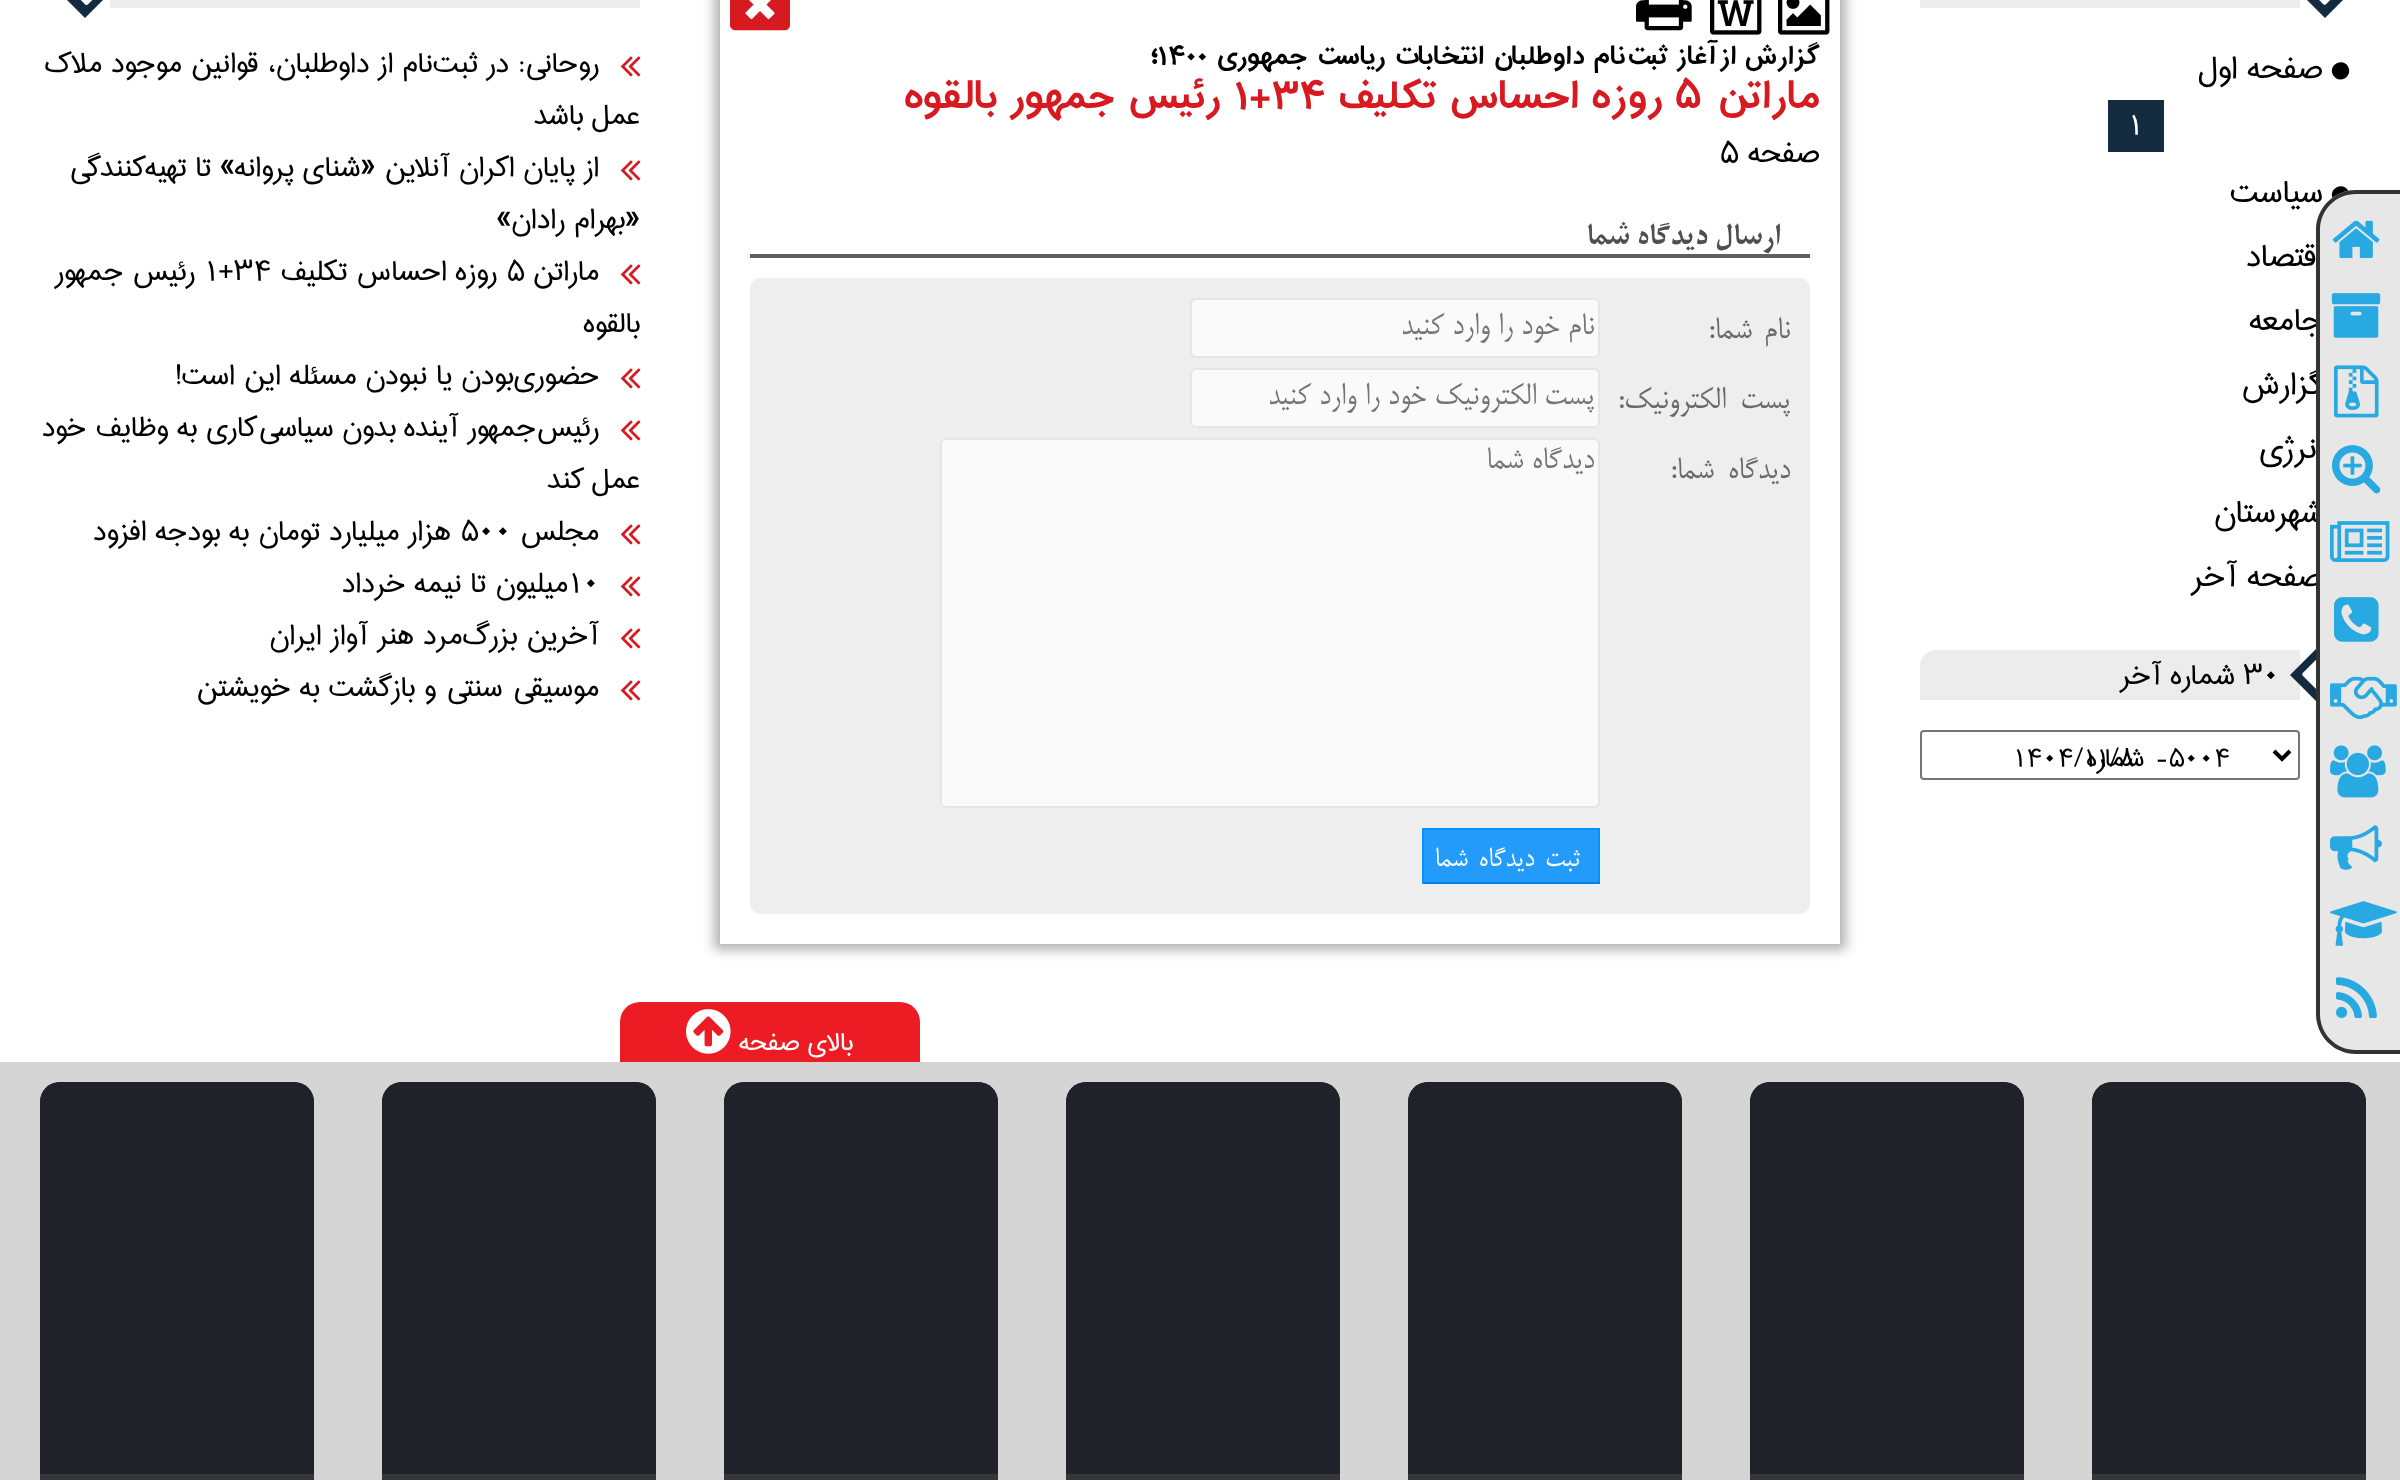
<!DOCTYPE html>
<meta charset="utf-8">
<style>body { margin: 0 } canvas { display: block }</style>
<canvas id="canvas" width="2400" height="1480"></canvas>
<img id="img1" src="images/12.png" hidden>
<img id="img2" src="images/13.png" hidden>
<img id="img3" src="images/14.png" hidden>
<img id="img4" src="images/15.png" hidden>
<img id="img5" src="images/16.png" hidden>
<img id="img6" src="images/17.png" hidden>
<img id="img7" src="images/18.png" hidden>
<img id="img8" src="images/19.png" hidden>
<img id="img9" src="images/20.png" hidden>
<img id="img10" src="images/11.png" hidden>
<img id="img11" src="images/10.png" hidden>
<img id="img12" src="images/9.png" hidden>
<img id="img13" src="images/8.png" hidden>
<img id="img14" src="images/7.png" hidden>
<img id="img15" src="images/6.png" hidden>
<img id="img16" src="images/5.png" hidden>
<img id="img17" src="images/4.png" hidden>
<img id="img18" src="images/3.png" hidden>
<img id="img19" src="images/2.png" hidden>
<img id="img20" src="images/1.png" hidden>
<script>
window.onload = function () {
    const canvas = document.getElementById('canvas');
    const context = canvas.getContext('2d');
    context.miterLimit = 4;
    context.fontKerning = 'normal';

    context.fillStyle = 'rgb(255, 255, 255)';
    context.fillRect(0, 0, 2400, 1480);
    context.fillStyle = 'rgb(20, 42, 63)';
    context.beginPath();
    context.moveTo(2325, -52);
    context.lineTo(2360, -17);
    context.lineTo(2325, 18);
    context.lineTo(2290, -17);
    context.closePath();
    context.fill();
    context.drawImage(document.getElementById('img1'), 2319, 0, 12, 5);
    context.fillStyle = 'rgb(236, 236, 237)';
    context.fillRect(1920, 0, 380, 8);
    context.fillStyle = 'rgb(0, 0, 0)';
    context.beginPath();
    context.moveTo(2348, 66.5);
    context.bezierCurveTo(2353.5, 76.5, 2339, 85, 2333, 75);
    context.bezierCurveTo(2327.5, 65.5, 2342.5, 57, 2348, 66.5);
    context.closePath();
    context.fill();
    context.fillStyle = 'rgb(20, 42, 63)';
    context.fillRect(2108, 100, 56, 52);
    context.fillStyle = 'rgb(0, 0, 0)';
    context.beginPath();
    context.moveTo(2348, 190.5);
    context.bezierCurveTo(2353.5, 200.5, 2339, 209, 2333, 199);
    context.bezierCurveTo(2327.5, 189.5, 2342.5, 181, 2348, 190.5);
    context.closePath();
    context.fill();
    context.fillStyle = 'rgb(236, 236, 237)';
    context.beginPath();
    context.roundRect(1920, 650, 380, 50, [16, 0, 0, 0]);
    context.fill();
    context.fillStyle = 'rgb(20, 42, 63)';
    context.beginPath();
    context.moveTo(2325, 640);
    context.lineTo(2360, 675);
    context.lineTo(2325, 710);
    context.lineTo(2290, 675);
    context.closePath();
    context.fill();
    context.drawImage(document.getElementById('img2'), 2302, 660, 14, 29);
    context.beginPath();
    context.roundRect(1921, 731, 378, 48, 3);
    context.strokeStyle = 'rgb(118, 118, 118)';
    context.lineWidth = 2;
    context.stroke();
    context.beginPath();
    context.moveTo(2274, 751);
    context.lineTo(2282, 759);
    context.lineTo(2290, 751);
    context.strokeStyle = 'rgb(0, 0, 0)';
    context.lineWidth = 4;
    context.stroke();
    context.save();
    context.beginPath();
    context.moveTo(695, 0);
    context.lineTo(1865, 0);
    context.lineTo(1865, 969);
    context.lineTo(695, 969);
    context.closePath();
    context.moveTo(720, -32);
    context.lineTo(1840, -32);
    context.lineTo(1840, 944);
    context.lineTo(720, 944);
    context.closePath();
    context.clip('evenodd');
    context.fillStyle = 'rgba(0, 0, 0, 0.3)';
    context.filter = 'blur(6px)';
    context.beginPath();
    context.rect(714, -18, 1132, 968);
    context.fill();
    context.filter = 'none';
    context.restore();
    context.drawImage(document.getElementById('img3'), 1778, 0, 52, 35);
    context.drawImage(document.getElementById('img4'), 1710, 0, 52, 35);
    context.drawImage(document.getElementById('img5'), 1636, 0, 56, 31);
    context.drawImage(document.getElementById('img6'), 730, 0, 60, 31);
    context.fillStyle = 'rgb(95, 95, 95)';
    context.fillRect(750, 254, 1060, 4);
    context.fillStyle = 'rgb(238, 238, 238)';
    context.beginPath();
    context.roundRect(750, 278, 1060, 636, 10);
    context.fill();
    context.fillStyle = 'rgb(250, 250, 250)';
    context.beginPath();
    context.roundRect(1191, 299, 408, 58, 5);
    context.fill();
    context.strokeStyle = 'rgb(229, 230, 233)';
    context.lineWidth = 2;
    context.stroke();
    context.beginPath();
    context.roundRect(1191, 369, 408, 58, 5);
    context.fill();
    context.stroke();
    context.beginPath();
    context.roundRect(941, 439, 658, 368, 5);
    context.fill();
    context.stroke();
    context.fillStyle = 'rgb(35, 155, 250)';
    context.fillRect(1424, 830, 174, 52);
    context.fillStyle = 'rgb(10, 144, 249)';
    context.fillRect(1422, 828, 178, 2);
    context.fillRect(1598, 828, 2, 56);
    context.fillStyle = 'rgb(5, 130, 229)';
    context.fillRect(1422, 882, 178, 2);
    context.fillStyle = 'rgb(10, 144, 249)';
    context.fillRect(1422, 828, 2, 56);
    context.fillStyle = 'rgb(236, 236, 237)';
    context.fillRect(110, 0, 530, 8);
    context.fillStyle = 'rgb(20, 42, 63)';
    context.beginPath();
    context.moveTo(85, -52);
    context.lineTo(120, -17);
    context.lineTo(85, 18);
    context.lineTo(50, -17);
    context.closePath();
    context.fill();
    context.drawImage(document.getElementById('img7'), 80, 0, 13, 6);
    context.drawImage(document.getElementById('img8'), 620, 56, 21, 21);
    context.drawImage(document.getElementById('img8'), 620, 160, 21, 21);
    context.drawImage(document.getElementById('img8'), 620, 264, 21, 21);
    context.drawImage(document.getElementById('img8'), 620, 368, 21, 21);
    context.drawImage(document.getElementById('img8'), 620, 420, 21, 21);
    context.drawImage(document.getElementById('img8'), 620, 524, 21, 21);
    context.drawImage(document.getElementById('img8'), 620, 576, 21, 21);
    context.drawImage(document.getElementById('img8'), 620, 628, 21, 21);
    context.drawImage(document.getElementById('img8'), 620, 680, 21, 21);
    context.fillStyle = 'rgb(237, 28, 36)';
    context.beginPath();
    context.roundRect(620, 1002, 300, 60, [20, 20, 0, 0]);
    context.fill();
    context.drawImage(document.getElementById('img9'), 686, 1009, 45, 45);
    context.fillStyle = 'rgb(213, 213, 213)';
    context.fillRect(0, 1062, 2400, 418);
    context.fillStyle = 'rgb(53, 54, 58)';
    context.beginPath();
    context.roundRect(2092, 1082, 274, 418, 20);
    context.fill();
    context.fillStyle = 'rgb(31, 34, 41)';
    context.beginPath();
    context.roundRect(2092, 1082, 274, 392, [20, 20, 0, 0]);
    context.fill();
    context.fillStyle = 'rgb(53, 54, 58)';
    context.beginPath();
    context.roundRect(1750, 1082, 274, 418, 20);
    context.fill();
    context.fillStyle = 'rgb(31, 34, 41)';
    context.beginPath();
    context.roundRect(1750, 1082, 274, 392, [20, 20, 0, 0]);
    context.fill();
    context.fillStyle = 'rgb(53, 54, 58)';
    context.beginPath();
    context.roundRect(1408, 1082, 274, 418, 20);
    context.fill();
    context.fillStyle = 'rgb(31, 34, 41)';
    context.beginPath();
    context.roundRect(1408, 1082, 274, 392, [20, 20, 0, 0]);
    context.fill();
    context.fillStyle = 'rgb(53, 54, 58)';
    context.beginPath();
    context.roundRect(1066, 1082, 274, 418, 20);
    context.fill();
    context.fillStyle = 'rgb(31, 34, 41)';
    context.beginPath();
    context.roundRect(1066, 1082, 274, 392, [20, 20, 0, 0]);
    context.fill();
    context.fillStyle = 'rgb(53, 54, 58)';
    context.beginPath();
    context.roundRect(724, 1082, 274, 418, 20);
    context.fill();
    context.fillStyle = 'rgb(31, 34, 41)';
    context.beginPath();
    context.roundRect(724, 1082, 274, 392, [20, 20, 0, 0]);
    context.fill();
    context.fillStyle = 'rgb(53, 54, 58)';
    context.beginPath();
    context.roundRect(382, 1082, 274, 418, 20);
    context.fill();
    context.fillStyle = 'rgb(31, 34, 41)';
    context.beginPath();
    context.roundRect(382, 1082, 274, 392, [20, 20, 0, 0]);
    context.fill();
    context.fillStyle = 'rgb(53, 54, 58)';
    context.beginPath();
    context.roundRect(40, 1082, 274, 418, 20);
    context.fill();
    context.fillStyle = 'rgb(31, 34, 41)';
    context.beginPath();
    context.roundRect(40, 1082, 274, 392, [20, 20, 0, 0]);
    context.fill();
    context.direction = 'rtl';
    context.font = '40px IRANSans';
    context.fillStyle = 'rgb(0, 0, 0)';
    context.fillText('صفحه اول', 2323, 78);
    context.direction = 'ltr';
    context.font = '36px IRANSans';
    context.fillStyle = 'rgb(255, 255, 255)';
    context.fillText('1', 2128, 134);
    context.direction = 'rtl';
    context.font = '40px IRANSans';
    context.fillStyle = 'rgb(0, 0, 0)';
    context.fillText('سیاست', 2323, 202);
    context.fillText('اقتصاد', 2323, 266);
    context.fillText('جامعه', 2323, 330);
    context.fillText('گزارش', 2323, 394);
    context.fillText('انرژی', 2323, 458);
    context.fillText('شهرستان', 2323, 522);
    context.fillText('صفحه آخر', 2323, 586);
    context.fillStyle = 'rgb(231, 231, 231)';
    context.beginPath();
    context.moveTo(2356, 190);
    context.lineTo(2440, 190);
    context.lineTo(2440, 1054);
    context.lineTo(2356, 1054);
    context.bezierCurveTo(2334, 1054, 2316, 1036, 2316, 1014);
    context.lineTo(2316, 230);
    context.bezierCurveTo(2316, 208, 2334, 190, 2356, 190);
    context.closePath();
    context.fill();
    context.fillStyle = 'rgb(51, 51, 51)';
    context.beginPath();
    context.moveTo(2356, 190);
    context.lineTo(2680, 190);
    context.lineTo(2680, 1054);
    context.lineTo(2356, 1054);
    context.bezierCurveTo(2334, 1054, 2316, 1036, 2316, 1014);
    context.lineTo(2316, 230);
    context.bezierCurveTo(2316, 208, 2334, 190, 2356, 190);
    context.closePath();
    context.moveTo(2356, 194);
    context.lineTo(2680, 194);
    context.lineTo(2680, 1050);
    context.lineTo(2356, 1050);
    context.bezierCurveTo(2336, 1050, 2320, 1034, 2320, 1014);
    context.lineTo(2320, 230);
    context.bezierCurveTo(2320, 210, 2336, 194, 2356, 194);
    context.closePath();
    context.fill('evenodd');
    context.drawImage(document.getElementById('img10'), 2336, 977, 41, 41);
    context.drawImage(document.getElementById('img11'), 2330, 901, 67, 45);
    context.drawImage(document.getElementById('img12'), 2330, 825, 52, 45);
    context.drawImage(document.getElementById('img13'), 2330, 745, 56, 53);
    context.drawImage(document.getElementById('img14'), 2330, 676, 67, 44);
    context.drawImage(document.getElementById('img15'), 2334, 597, 45, 45);
    context.drawImage(document.getElementById('img16'), 2330, 521, 60, 41);
    context.drawImage(document.getElementById('img17'), 2332, 445, 49, 49);
    context.drawImage(document.getElementById('img18'), 2334, 365, 45, 53);
    context.drawImage(document.getElementById('img19'), 2331, 293, 50, 45);
    context.drawImage(document.getElementById('img20'), 2332, 220, 48, 38);
    context.direction = 'ltr';
    context.font = '36px IRANSans';
    context.fillStyle = 'rgb(0, 0, 0)';
    context.fillText('30', 2243, 684);
    context.direction = 'rtl';
    context.fillText('شماره آخر', 2235, 684);
    context.direction = 'ltr';
    context.font = '32px IRANSans';
    context.fillText('5004', 2168, 766);
    context.fillText('1404/11/8', 2013, 766);
    context.wordSpacing = '4px';
    context.direction = 'rtl';
    context.fillText('- شماره', 2168, 766);
    context.wordSpacing = '0px';
    context.font = 'bold 32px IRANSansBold';
    context.fillText('گزارش', 1820, 64);
    context.fillText('ازآغاز ثبت‌نام داوطلبان انتخابات ریاست جمهوری', 1736, 64);
    context.direction = 'ltr';
    context.fillText('1400', 1157, 64);
    context.direction = 'rtl';
    context.fillText('؛', 1157, 64);
    context.font = 'bold 48px IRANSansBold';
    context.fillStyle = 'rgb(215, 25, 32)';
    context.fillText('ماراتن', 1820, 108);
    context.direction = 'ltr';
    context.fillText('5', 1674, 108);
    context.direction = 'rtl';
    context.fillText('روزه احساس تکلیف', 1663, 108);
    context.direction = 'ltr';
    context.fillText('1+34', 1233, 108);
    context.direction = 'rtl';
    context.fillText('رئیس جمهور بالقوه', 1221, 108);
    context.font = '38px IRANSans';
    context.fillStyle = 'rgb(0, 0, 0)';
    context.fillText('صفحه', 1820, 162);
    context.direction = 'ltr';
    context.fillText('5', 1719, 162);
    context.direction = 'rtl';
    context.font = 'bold 32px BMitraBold';
    context.fillStyle = 'rgb(79, 79, 79)';
    context.fillText('ارسال دیدگاه شما', 1780, 244);
    context.letterSpacing = '-0.5px';
    context.wordSpacing = '4px';
    context.font = '36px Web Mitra';
    context.fillStyle = 'rgb(105, 105, 105)';
    context.fillText('نام شما:', 1790, 338);
    context.letterSpacing = '0px';
    context.wordSpacing = '0px';
    context.fillStyle = 'rgb(117, 117, 117)';
    context.fillText('نام خود را وارد کنيد', 1594, 334);
    context.letterSpacing = '-0.5px';
    context.wordSpacing = '7px';
    context.fillStyle = 'rgb(105, 105, 105)';
    context.fillText('پست الکترونیک:', 1790, 408);
    context.letterSpacing = '0px';
    context.wordSpacing = '0px';
    context.fillStyle = 'rgb(117, 117, 117)';
    context.fillText('پست الکترونيک خود را وارد کنيد', 1594, 404);
    context.letterSpacing = '-0.5px';
    context.wordSpacing = '6px';
    context.fillStyle = 'rgb(105, 105, 105)';
    context.fillText('ديدگاه شما:', 1790, 478);
    context.letterSpacing = '0px';
    context.wordSpacing = '0px';
    context.fillStyle = 'rgb(117, 117, 117)';
    context.fillText('ديدگاه شما', 1594, 468);
    context.letterSpacing = '-0.5px';
    context.wordSpacing = '4px';
    context.font = '32px Web Mitra';
    context.fillStyle = 'rgb(255, 255, 255)';
    context.fillText('ثبت ديدگاه شما', 1580, 866);
    context.letterSpacing = '0px';
    context.wordSpacing = '0px';
    context.font = '36px IRANSans';
    context.fillStyle = 'rgb(0, 0, 0)';
    context.fillText('روحانی: در ثبت‌نام از داوطلبان، قوانین موجود ملاک', 599, 72);
    context.fillText('عمل باشد', 640, 124);
    context.fillText('از پایان اکران آنلاین «شنای پروانه»', 599, 176);
    context.fillText('تا تهیه‌کنندگی', 211, 176);
    context.fillText('«بهرام رادان»', 640, 228);
    context.fillText('ماراتن', 599, 280);
    context.direction = 'ltr';
    context.fillText('5', 506, 280);
    context.direction = 'rtl';
    context.fillText('روزه احساس تکلیف', 497, 280);
    context.direction = 'ltr';
    context.fillText('1+34', 204, 280);
    context.direction = 'rtl';
    context.fillText('رئیس جمهور', 195, 280);
    context.fillText('بالقوه', 640, 332);
    context.fillText('حضوری‌بودن یا نبودن مسئله این است!', 599, 384);
    context.fillText('رئیس‌جمهور آینده', 599, 436);
    context.fillText('بدون سیاسی‌کاری', 396, 436);
    context.fillText('به وظایف خود', 197, 436);
    context.fillText('عمل کند', 640, 488);
    context.fillText('مجلس', 599, 540);
    context.direction = 'ltr';
    context.fillText('۵۰۰', 460, 540);
    context.direction = 'rtl';
    context.fillText('هزار میلیارد تومان', 451, 540);
    context.fillText('به بودجه افزود', 249, 540);
    context.direction = 'ltr';
    context.fillText('۱۰', 568, 592);
    context.direction = 'rtl';
    context.fillText('میلیون', 568, 592);
    context.fillText('تا نیمه خرداد', 486, 592);
    context.fillText('آخرین بزرگ‌مرد', 599, 644);
    context.fillText('هنر آواز ایران', 414, 644);
    context.fillText('موسیقی سنتی و بازگشت به خویشتن', 599, 696);
    context.font = '32px IRANSans';
    context.fillStyle = 'rgb(255, 255, 255)';
    context.fillText('بالای صفحه', 853, 1050);
};
</script>
